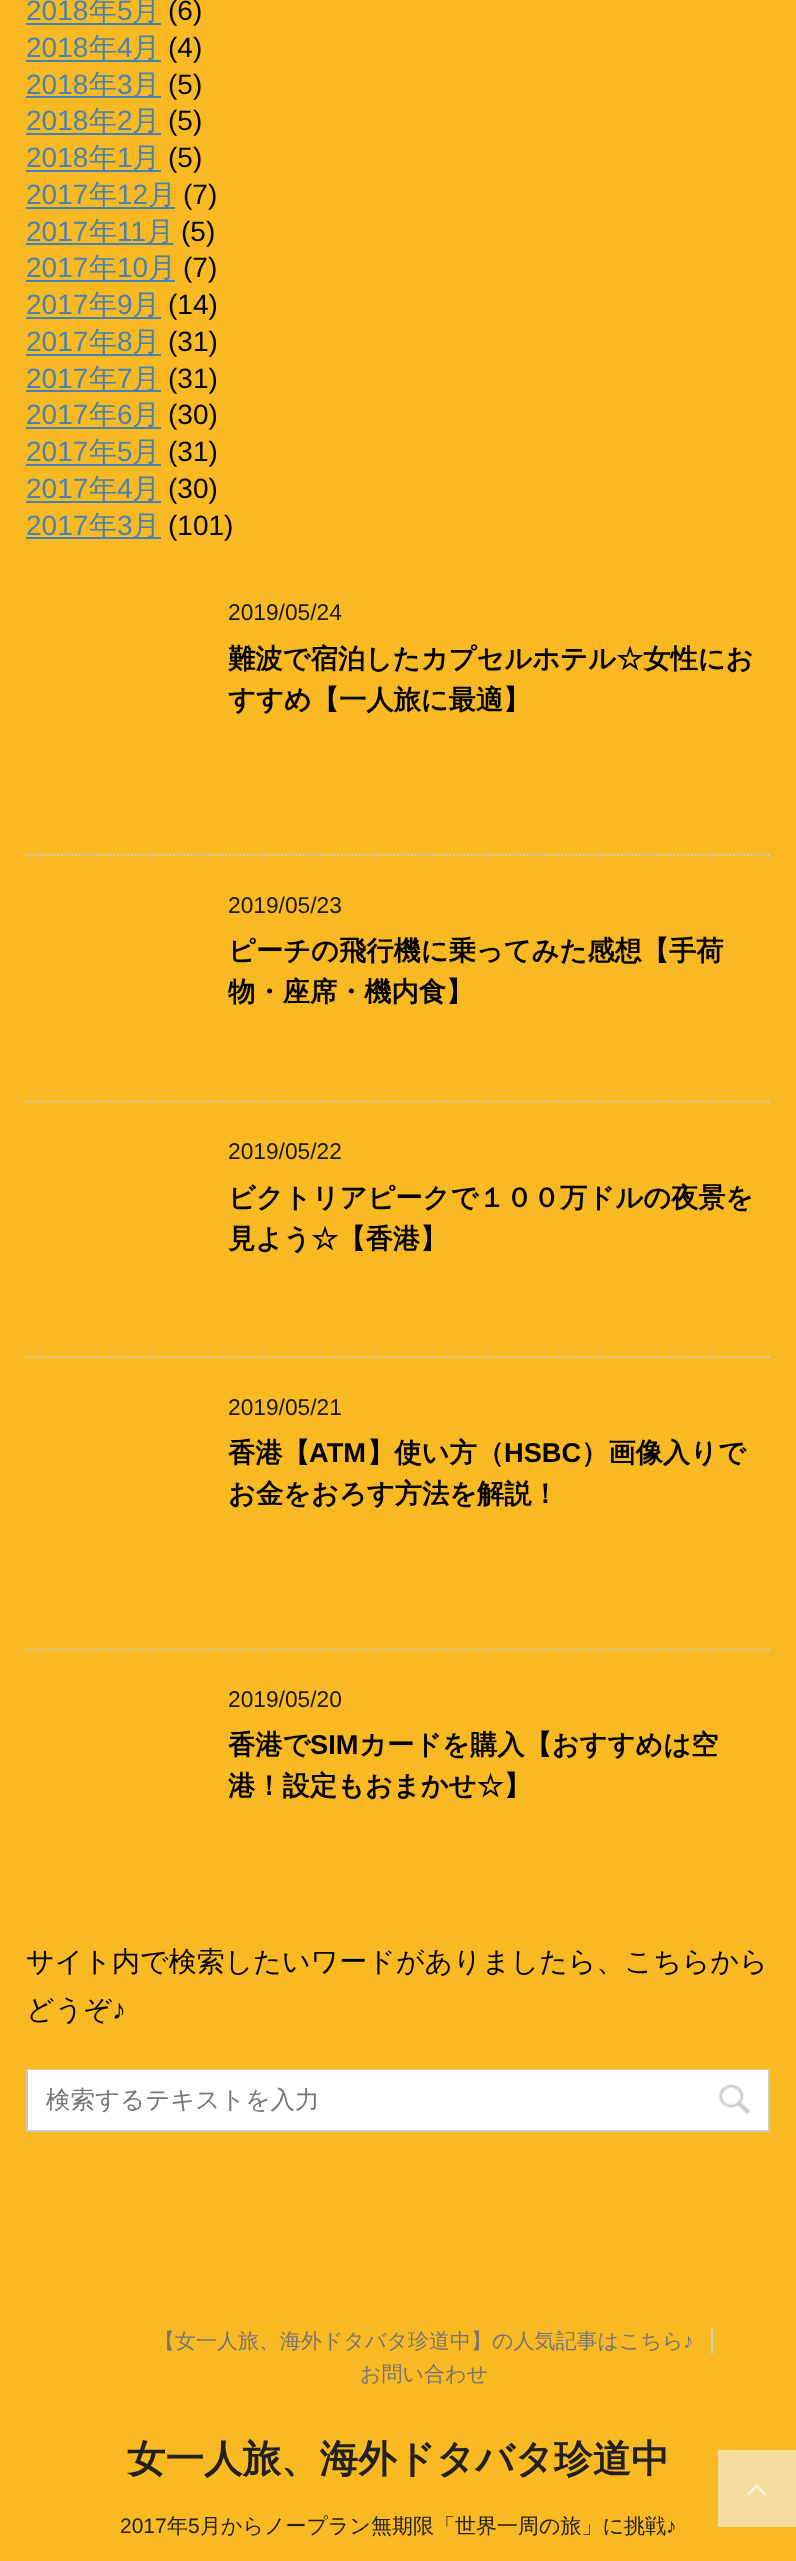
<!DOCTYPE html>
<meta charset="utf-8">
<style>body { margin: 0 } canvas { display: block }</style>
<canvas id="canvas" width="796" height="2561"></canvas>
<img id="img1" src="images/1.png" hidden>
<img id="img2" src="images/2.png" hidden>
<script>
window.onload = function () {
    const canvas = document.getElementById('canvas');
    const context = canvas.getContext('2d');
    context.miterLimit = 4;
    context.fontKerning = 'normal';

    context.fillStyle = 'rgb(249, 185, 34)';
    context.fillRect(0, 0, 796, 2561);
    context.fillStyle = 'rgb(70, 130, 180)';
    context.fillRect(26, 23, 135, 2);
    context.fillRect(26, 60, 135, 2);
    context.fillRect(26, 96, 135, 2);
    context.fillRect(26, 133, 135, 2);
    context.fillRect(26, 170, 135, 2);
    context.fillRect(26, 207, 149, 2);
    context.fillRect(26, 243, 147, 2);
    context.fillRect(26, 280, 149, 2);
    context.fillRect(26, 317, 135, 2);
    context.fillRect(26, 354, 135, 2);
    context.fillRect(26, 390, 135, 2);
    context.fillRect(26, 427, 135, 2);
    context.fillRect(26, 464, 135, 2);
    context.fillRect(26, 501, 135, 2);
    context.fillRect(26, 537, 135, 2);
    context.beginPath();
    context.moveTo(26, 855);
    context.lineTo(770, 855);
    context.strokeStyle = 'rgb(204, 204, 204)';
    context.lineWidth = 1.8;
    context.setLineDash([1.75, 1.75]);
    context.stroke();
    context.beginPath();
    context.moveTo(26, 1101.5);
    context.lineTo(770, 1101.5);
    context.stroke();
    context.beginPath();
    context.moveTo(26, 1357);
    context.lineTo(770, 1357);
    context.stroke();
    context.beginPath();
    context.moveTo(26, 1649.5);
    context.lineTo(770, 1649.5);
    context.stroke();
    context.lineWidth = 2;
    context.setLineDash([]);
    context.strokeRect(27, 2070, 742, 61);
    context.fillStyle = 'rgb(255, 255, 255)';
    context.fillRect(28, 2070, 740, 60);
    context.drawImage(document.getElementById('img1'), 719, 2084, 32, 30);
    context.fillStyle = 'rgb(204, 204, 204)';
    context.fillRect(711, 2329, 2, 25);
    context.fillStyle = 'rgb(245, 220, 159)';
    context.fillRect(718, 2450, 78, 77);
    context.drawImage(document.getElementById('img2'), 747, 2484, 20, 12);
    context.font = '28px Liberation Sans';
    context.fillStyle = 'rgb(70, 130, 180)';
    context.fillText('2018', 26, 20);
    context.font = '500 28px WenQuanYi Zen Hei';
    context.fillText('年', 89, 20);
    context.font = '28px Liberation Sans';
    context.fillText('5', 117, 20);
    context.font = '500 28px WenQuanYi Zen Hei';
    context.fillText('月', 132, 20);
    context.font = '28px Liberation Sans';
    context.fillStyle = 'rgb(0, 0, 0)';
    context.fillText('(6)', 168, 20);
    context.fillStyle = 'rgb(70, 130, 180)';
    context.fillText('2018', 26, 57);
    context.font = '500 28px WenQuanYi Zen Hei';
    context.fillText('年', 89, 57);
    context.font = '28px Liberation Sans';
    context.fillText('4', 117, 57);
    context.font = '500 28px WenQuanYi Zen Hei';
    context.fillText('月', 132, 57);
    context.font = '28px Liberation Sans';
    context.fillStyle = 'rgb(0, 0, 0)';
    context.fillText('(4)', 168, 57);
    context.fillStyle = 'rgb(70, 130, 180)';
    context.fillText('2018', 26, 94);
    context.font = '500 28px WenQuanYi Zen Hei';
    context.fillText('年', 89, 94);
    context.font = '28px Liberation Sans';
    context.fillText('3', 117, 94);
    context.font = '500 28px WenQuanYi Zen Hei';
    context.fillText('月', 132, 94);
    context.font = '28px Liberation Sans';
    context.fillStyle = 'rgb(0, 0, 0)';
    context.fillText('(5)', 168, 94);
    context.fillStyle = 'rgb(70, 130, 180)';
    context.fillText('2018', 26, 130);
    context.font = '500 28px WenQuanYi Zen Hei';
    context.fillText('年', 89, 130);
    context.font = '28px Liberation Sans';
    context.fillText('2', 117, 130);
    context.font = '500 28px WenQuanYi Zen Hei';
    context.fillText('月', 132, 130);
    context.font = '28px Liberation Sans';
    context.fillStyle = 'rgb(0, 0, 0)';
    context.fillText('(5)', 168, 130);
    context.fillStyle = 'rgb(70, 130, 180)';
    context.fillText('2018', 26, 167);
    context.font = '500 28px WenQuanYi Zen Hei';
    context.fillText('年', 89, 167);
    context.font = '28px Liberation Sans';
    context.fillText('1', 117, 167);
    context.font = '500 28px WenQuanYi Zen Hei';
    context.fillText('月', 132, 167);
    context.font = '28px Liberation Sans';
    context.fillStyle = 'rgb(0, 0, 0)';
    context.fillText('(5)', 168, 167);
    context.fillStyle = 'rgb(70, 130, 180)';
    context.fillText('2017', 26, 204);
    context.font = '500 28px WenQuanYi Zen Hei';
    context.fillText('年', 89, 204);
    context.font = '28px Liberation Sans';
    context.fillText('12', 117, 204);
    context.font = '500 28px WenQuanYi Zen Hei';
    context.fillText('月', 148, 204);
    context.font = '28px Liberation Sans';
    context.fillStyle = 'rgb(0, 0, 0)';
    context.fillText('(7)', 183, 204);
    context.fillStyle = 'rgb(70, 130, 180)';
    context.fillText('2017', 26, 241);
    context.font = '500 28px WenQuanYi Zen Hei';
    context.fillText('年', 89, 241);
    context.font = '28px Liberation Sans';
    context.fillText('11', 117, 241);
    context.font = '500 28px WenQuanYi Zen Hei';
    context.fillText('月', 146, 241);
    context.font = '28px Liberation Sans';
    context.fillStyle = 'rgb(0, 0, 0)';
    context.fillText('(5)', 181, 241);
    context.fillStyle = 'rgb(70, 130, 180)';
    context.fillText('2017', 26, 277);
    context.font = '500 28px WenQuanYi Zen Hei';
    context.fillText('年', 89, 277);
    context.font = '28px Liberation Sans';
    context.fillText('10', 117, 277);
    context.font = '500 28px WenQuanYi Zen Hei';
    context.fillText('月', 148, 277);
    context.font = '28px Liberation Sans';
    context.fillStyle = 'rgb(0, 0, 0)';
    context.fillText('(7)', 183, 277);
    context.fillStyle = 'rgb(70, 130, 180)';
    context.fillText('2017', 26, 314);
    context.font = '500 28px WenQuanYi Zen Hei';
    context.fillText('年', 89, 314);
    context.font = '28px Liberation Sans';
    context.fillText('9', 117, 314);
    context.font = '500 28px WenQuanYi Zen Hei';
    context.fillText('月', 132, 314);
    context.font = '28px Liberation Sans';
    context.fillStyle = 'rgb(0, 0, 0)';
    context.fillText('(14)', 168, 314);
    context.fillStyle = 'rgb(70, 130, 180)';
    context.fillText('2017', 26, 351);
    context.font = '500 28px WenQuanYi Zen Hei';
    context.fillText('年', 89, 351);
    context.font = '28px Liberation Sans';
    context.fillText('8', 117, 351);
    context.font = '500 28px WenQuanYi Zen Hei';
    context.fillText('月', 132, 351);
    context.font = '28px Liberation Sans';
    context.fillStyle = 'rgb(0, 0, 0)';
    context.fillText('(31)', 168, 351);
    context.fillStyle = 'rgb(70, 130, 180)';
    context.fillText('2017', 26, 388);
    context.font = '500 28px WenQuanYi Zen Hei';
    context.fillText('年', 89, 388);
    context.font = '28px Liberation Sans';
    context.fillText('7', 117, 388);
    context.font = '500 28px WenQuanYi Zen Hei';
    context.fillText('月', 132, 388);
    context.font = '28px Liberation Sans';
    context.fillStyle = 'rgb(0, 0, 0)';
    context.fillText('(31)', 168, 388);
    context.fillStyle = 'rgb(70, 130, 180)';
    context.fillText('2017', 26, 424);
    context.font = '500 28px WenQuanYi Zen Hei';
    context.fillText('年', 89, 424);
    context.font = '28px Liberation Sans';
    context.fillText('6', 117, 424);
    context.font = '500 28px WenQuanYi Zen Hei';
    context.fillText('月', 132, 424);
    context.font = '28px Liberation Sans';
    context.fillStyle = 'rgb(0, 0, 0)';
    context.fillText('(30)', 168, 424);
    context.fillStyle = 'rgb(70, 130, 180)';
    context.fillText('2017', 26, 461);
    context.font = '500 28px WenQuanYi Zen Hei';
    context.fillText('年', 89, 461);
    context.font = '28px Liberation Sans';
    context.fillText('5', 117, 461);
    context.font = '500 28px WenQuanYi Zen Hei';
    context.fillText('月', 132, 461);
    context.font = '28px Liberation Sans';
    context.fillStyle = 'rgb(0, 0, 0)';
    context.fillText('(31)', 168, 461);
    context.fillStyle = 'rgb(70, 130, 180)';
    context.fillText('2017', 26, 498);
    context.font = '500 28px WenQuanYi Zen Hei';
    context.fillText('年', 89, 498);
    context.font = '28px Liberation Sans';
    context.fillText('4', 117, 498);
    context.font = '500 28px WenQuanYi Zen Hei';
    context.fillText('月', 132, 498);
    context.font = '28px Liberation Sans';
    context.fillStyle = 'rgb(0, 0, 0)';
    context.fillText('(30)', 168, 498);
    context.fillStyle = 'rgb(70, 130, 180)';
    context.fillText('2017', 26, 535);
    context.font = '500 28px WenQuanYi Zen Hei';
    context.fillText('年', 89, 535);
    context.font = '28px Liberation Sans';
    context.fillText('3', 117, 535);
    context.font = '500 28px WenQuanYi Zen Hei';
    context.fillText('月', 132, 535);
    context.font = '28px Liberation Sans';
    context.fillStyle = 'rgb(0, 0, 0)';
    context.fillText('(101)', 168, 535);
    context.font = '22.75px Liberation Sans';
    context.fillStyle = 'rgb(26, 26, 26)';
    context.fillText('2019/05/24', 228, 620);
    context.font = 'bold 27.25px WenQuanYi Zen Hei';
    context.fillStyle = 'rgb(0, 0, 0)';
    context.fillText('難波で宿泊したカプセルホテル☆女性にお', 228, 668);
    context.fillText('すすめ【一人旅に最適】', 228, 709);
    context.font = '22.75px Liberation Sans';
    context.fillStyle = 'rgb(26, 26, 26)';
    context.fillText('2019/05/23', 228, 913);
    context.font = 'bold 27.25px WenQuanYi Zen Hei';
    context.fillStyle = 'rgb(0, 0, 0)';
    context.fillText('ピーチの飛行機に乗ってみた感想【手荷', 228, 960);
    context.fillText('物・座席・機内食】', 228, 1001);
    context.font = '22.75px Liberation Sans';
    context.fillStyle = 'rgb(26, 26, 26)';
    context.fillText('2019/05/22', 228, 1159);
    context.font = 'bold 27.25px WenQuanYi Zen Hei';
    context.fillStyle = 'rgb(0, 0, 0)';
    context.fillText('ビクトリアピークで１００万ドルの夜景を', 228, 1207);
    context.fillText('見よう☆【香港】', 228, 1248);
    context.font = '22.75px Liberation Sans';
    context.fillStyle = 'rgb(26, 26, 26)';
    context.fillText('2019/05/21', 228, 1415);
    context.font = 'bold 27.25px WenQuanYi Zen Hei';
    context.fillStyle = 'rgb(0, 0, 0)';
    context.fillText('香港【', 228, 1462);
    context.font = 'bold 27.25px Liberation Sans';
    context.fillText('ATM', 309, 1462);
    context.font = 'bold 27.25px WenQuanYi Zen Hei';
    context.fillText('】使い方（', 367, 1462);
    context.font = 'bold 27.25px Liberation Sans';
    context.fillText('HSBC', 504, 1462);
    context.font = 'bold 27.25px WenQuanYi Zen Hei';
    context.fillText('）画像入りで', 581, 1462);
    context.fillText('お金をおろす方法を解説！', 228, 1503);
    context.font = '22.75px Liberation Sans';
    context.fillStyle = 'rgb(26, 26, 26)';
    context.fillText('2019/05/20', 228, 1707);
    context.font = 'bold 27.25px WenQuanYi Zen Hei';
    context.fillStyle = 'rgb(0, 0, 0)';
    context.fillText('香港で', 228, 1754);
    context.font = 'bold 27.25px Liberation Sans';
    context.fillText('SIM', 310, 1754);
    context.font = 'bold 27.25px WenQuanYi Zen Hei';
    context.fillText('カードを購入【おすすめは空', 359, 1754);
    context.fillText('港！設定もおまかせ☆】', 228, 1795);
    context.font = '500 28px WenQuanYi Zen Hei';
    context.fillText('サイト内で検索したいワードがありましたら、こちらから', 26, 1971);
    context.fillText('どうぞ', 26, 2019);
    context.font = '28px Liberation Sans';
    context.fillText('♪', 112, 2019);
    context.font = '500 24.5px WenQuanYi Zen Hei';
    context.fillStyle = 'rgb(117, 117, 117)';
    context.fillText('検索するテキストを入力', 46, 2108);
    context.font = '500 21px WenQuanYi Zen Hei';
    context.fillText('【女一人旅、海外ドタバタ珍道中】の人気記事はこちら', 154, 2348);
    context.font = '21px Liberation Sans';
    context.fillText('♪', 683, 2348);
    context.font = '500 21px WenQuanYi Zen Hei';
    context.fillText('お問い合わせ', 360, 2381);
    context.font = 'bold 38.5px WenQuanYi Zen Hei';
    context.fillStyle = 'rgb(33, 33, 33)';
    context.fillText('女一人旅、海外ドタバタ珍道中', 127, 2472);
    context.font = '21px Liberation Sans';
    context.fillText('2017', 120, 2533);
    context.font = '500 21px WenQuanYi Zen Hei';
    context.fillText('年', 167, 2533);
    context.font = '21px Liberation Sans';
    context.fillText('5', 188, 2533);
    context.font = '500 21px WenQuanYi Zen Hei';
    context.fillText('月からノープラン無期限「世界一周の旅」に挑戦', 200, 2533);
    context.font = '21px Liberation Sans';
    context.fillText('♪', 666, 2533);
};
</script>
